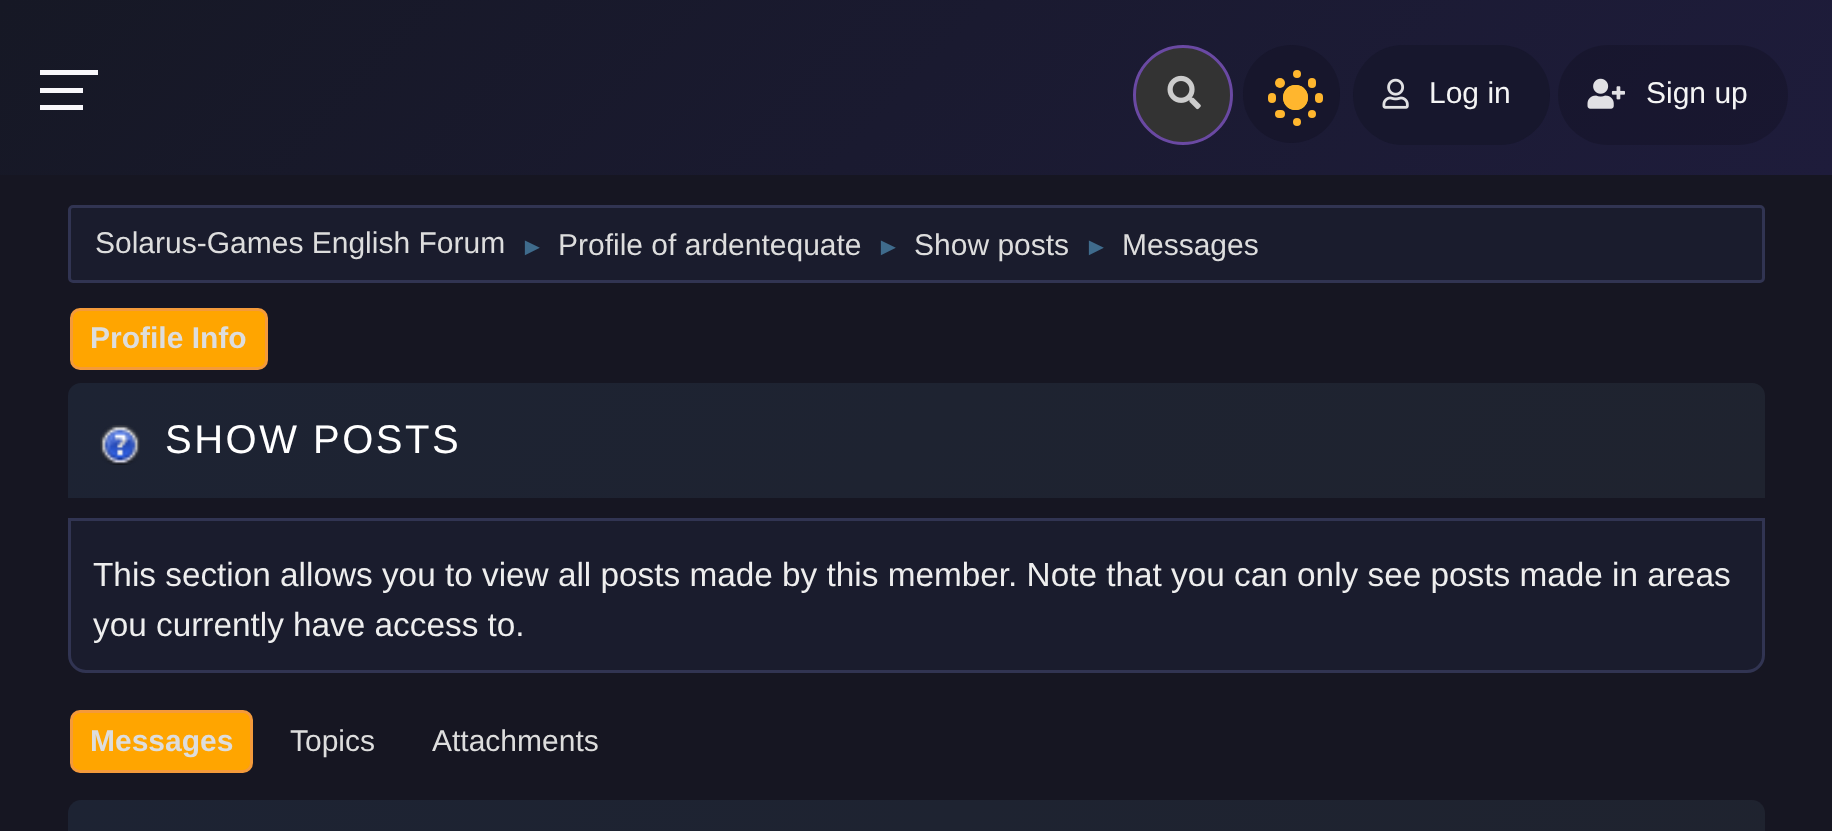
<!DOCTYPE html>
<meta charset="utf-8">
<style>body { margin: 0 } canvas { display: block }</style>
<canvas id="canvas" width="1832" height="831"></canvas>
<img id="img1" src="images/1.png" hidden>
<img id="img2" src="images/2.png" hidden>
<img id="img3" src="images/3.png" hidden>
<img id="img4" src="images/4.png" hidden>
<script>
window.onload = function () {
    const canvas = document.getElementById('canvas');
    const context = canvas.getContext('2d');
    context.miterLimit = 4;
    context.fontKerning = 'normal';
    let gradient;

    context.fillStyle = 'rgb(22, 22, 34)';
    context.fillRect(0, 0, 1832, 831);
    gradient = context.createLinearGradient(1450, 585, 383, -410);
    gradient.addColorStop(0, 'rgb(30, 28, 59)');
    gradient.addColorStop(1, 'rgb(22, 24, 37)');
    context.fillStyle = gradient;
    context.fillRect(0, 0, 1832, 175);
    context.fillStyle = 'rgb(248, 247, 251)';
    context.fillRect(40, 88, 43, 5);
    context.fillRect(40, 70, 58, 5);
    context.fillRect(40, 105, 43, 5);
    context.fillStyle = 'rgb(51, 51, 51)';
    context.beginPath();
    context.arc(1183, 95, 48.5, 0, 2 * Math.PI);
    context.fill();
    context.strokeStyle = 'rgb(106, 73, 163)';
    context.lineWidth = 3;
    context.stroke();
    context.drawImage(document.getElementById('img1'), 1167, 75, 34, 35);
    context.fillStyle = 'rgb(23, 22, 44)';
    context.beginPath();
    context.roundRect(1243, 45, 97, 98, 48.5);
    context.fill();
    context.fillStyle = 'rgb(255, 210, 46)';
    context.beginPath();
    context.moveTo(1295.5, 85);
    context.bezierCurveTo(1279, 85, 1279, 110, 1295.5, 110);
    context.bezierCurveTo(1312, 110, 1312, 85, 1295.5, 85);
    context.closePath();
    context.fill();
    context.fillStyle = 'rgb(255, 182, 46)';
    context.beginPath();
    context.arc(1295.5, 97.5, 12.5, 0, 2 * Math.PI);
    context.fill();
    context.beginPath();
    context.arc(1280, 83, 5, 0, 2 * Math.PI);
    context.fill();
    context.beginPath();
    context.roundRect(1308, 78, 8, 10, 4);
    context.fill();
    context.beginPath();
    context.roundRect(1275, 110, 10, 8, 4);
    context.fill();
    context.beginPath();
    context.arc(1312, 114, 4, 0, 2 * Math.PI);
    context.fill();
    context.beginPath();
    context.roundRect(1268, 93, 8, 10, 4);
    context.fill();
    context.beginPath();
    context.roundRect(1315, 93, 8, 10, 4);
    context.fill();
    context.beginPath();
    context.arc(1297, 122, 4, 0, 2 * Math.PI);
    context.fill();
    context.beginPath();
    context.arc(1297, 74, 4, 0, 2 * Math.PI);
    context.fill();
    context.fillStyle = 'rgb(23, 23, 45)';
    context.beginPath();
    context.roundRect(1353, 45, 197, 100, 50);
    context.fill();
    context.drawImage(document.getElementById('img2'), 1382, 78, 27, 31);
    context.fillStyle = 'rgba(0, 0, 0, 0.16)';
    context.beginPath();
    context.roundRect(1558, 45, 230, 100, 50);
    context.fill();
    context.drawImage(document.getElementById('img3'), 1587, 78, 38, 31);
    context.fillStyle = 'rgb(26, 28, 45)';
    context.beginPath();
    context.roundRect(69.5, 206.5, 1694, 75, 3.5);
    context.fill();
    context.strokeStyle = 'rgb(49, 52, 82)';
    context.stroke();
    context.fillStyle = 'rgb(255, 165, 0)';
    context.beginPath();
    context.roundRect(71.5, 309.5, 195, 59, 8.5);
    context.fill();
    context.strokeStyle = 'rgb(244, 154, 58)';
    context.stroke();
    gradient = context.createLinearGradient(1399, 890, 434, -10);
    gradient.addColorStop(0, 'rgb(31, 35, 47)');
    gradient.addColorStop(1, 'rgb(29, 35, 51)');
    context.fillStyle = gradient;
    context.beginPath();
    context.roundRect(68, 383, 1697, 115, [13, 13, 0, 0]);
    context.fill();
    context.drawImage(document.getElementById('img4'), 100, 425, 40, 40);
    context.fillStyle = 'rgb(26, 28, 45)';
    context.beginPath();
    context.roundRect(69.5, 519.5, 1694, 152, [0, 0, 16.5, 16.5]);
    context.fill();
    context.strokeStyle = 'rgb(49, 52, 82)';
    context.stroke();
    context.fillStyle = 'rgb(255, 165, 0)';
    context.beginPath();
    context.roundRect(71.5, 711.5, 180, 60, 8.5);
    context.fill();
    context.strokeStyle = 'rgb(244, 154, 58)';
    context.stroke();
    gradient = context.createLinearGradient(1398, 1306, 434, 407);
    gradient.addColorStop(0, 'rgb(31, 35, 47)');
    gradient.addColorStop(1, 'rgb(29, 35, 51)');
    context.fillStyle = gradient;
    context.beginPath();
    context.moveTo(81, 800);
    context.lineTo(1752, 800);
    context.bezierCurveTo(1759, 800, 1765, 806, 1765, 813);
    context.lineTo(1765, 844);
    context.lineTo(68, 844);
    context.lineTo(68, 813);
    context.bezierCurveTo(68, 806, 74, 800, 81, 800);
    context.closePath();
    context.fill();
    context.font = '30px Liberation Sans';
    context.fillStyle = 'rgb(245, 245, 245)';
    context.fillText('Log in', 1429, 103);
    context.fillText('Sign up', 1646, 103);
    context.fillStyle = 'rgb(221, 221, 221)';
    context.fillText('Solarus-Games English Forum', 95, 253);
    context.font = '25px Liberation Sans';
    context.fillStyle = 'rgb(63, 107, 140)';
    context.fillText('►', 520, 255);
    context.font = '30px Liberation Sans';
    context.fillStyle = 'rgb(221, 221, 221)';
    context.fillText('Profile of ardentequate', 558, 255);
    context.font = '25px Liberation Sans';
    context.fillStyle = 'rgb(63, 107, 140)';
    context.fillText('►', 876, 255);
    context.font = '30px Liberation Sans';
    context.fillStyle = 'rgb(221, 221, 221)';
    context.fillText('Show posts', 914, 255);
    context.font = '25px Liberation Sans';
    context.fillStyle = 'rgb(63, 107, 140)';
    context.fillText('►', 1084, 255);
    context.font = '30px Liberation Sans';
    context.fillStyle = 'rgb(221, 221, 221)';
    context.fillText('Messages', 1122, 255);
    context.font = 'bold 30px Liberation Sans';
    context.fillText('Profile Info', 90, 348);
    context.letterSpacing = '2.5px';
    context.font = '40px Liberation Sans';
    context.fillStyle = 'rgb(255, 255, 255)';
    context.fillText('SHOW POSTS', 165, 453);
    context.letterSpacing = '0px';
    context.font = '33.35px Liberation Sans';
    context.fillStyle = 'rgb(238, 238, 238)';
    context.fillText('This section allows you to view all posts made by this member. Note that you can only see posts made in areas', 93, 586);
    context.fillText('you currently have access to.', 93, 636);
    context.font = 'bold 30px Liberation Sans';
    context.fillStyle = 'rgb(221, 221, 221)';
    context.fillText('Messages', 90, 751);
    context.font = '30px Liberation Sans';
    context.fillText('Topics', 290, 751);
    context.fillText('Attachments', 432, 751);
};
</script>
